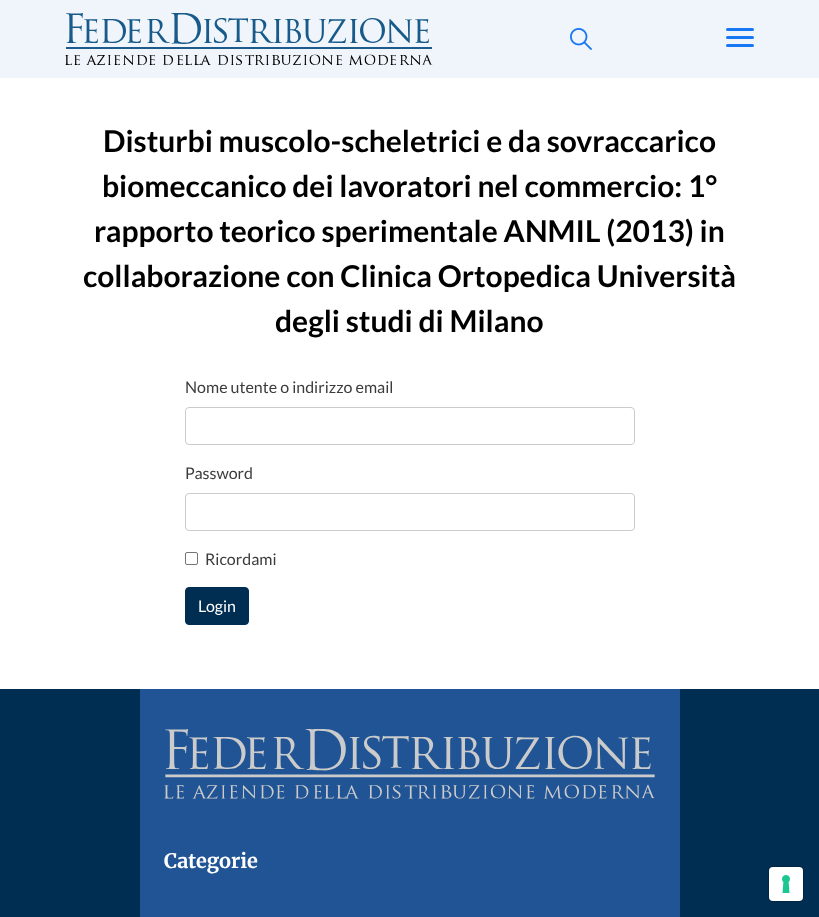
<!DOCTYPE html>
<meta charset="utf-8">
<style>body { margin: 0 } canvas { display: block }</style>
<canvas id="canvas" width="819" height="917"></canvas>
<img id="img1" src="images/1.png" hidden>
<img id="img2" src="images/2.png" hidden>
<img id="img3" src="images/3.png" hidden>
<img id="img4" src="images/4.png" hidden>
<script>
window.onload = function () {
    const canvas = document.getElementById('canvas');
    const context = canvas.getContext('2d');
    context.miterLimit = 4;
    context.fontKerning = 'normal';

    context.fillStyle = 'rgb(255, 255, 255)';
    context.fillRect(0, 0, 819, 917);
    context.fillStyle = 'rgb(240, 245, 251)';
    context.fillRect(0, 0, 819, 78);
    context.drawImage(document.getElementById('img1'), 65, 13, 368, 52);
    context.drawImage(document.getElementById('img2'), 570, 28, 22, 22);
    context.fillStyle = 'rgb(24, 119, 242)';
    context.beginPath();
    context.roundRect(726, 28, 28, 3, 1.5);
    context.fill();
    context.beginPath();
    context.roundRect(726, 36, 28, 3, 1.5);
    context.fill();
    context.beginPath();
    context.roundRect(726, 44, 28, 3, 1.5);
    context.fill();
    context.beginPath();
    context.roundRect(185.5, 407.5, 449, 37, 3.5);
    context.strokeStyle = 'rgb(203, 203, 203)';
    context.stroke();
    context.beginPath();
    context.roundRect(185.5, 493.5, 449, 37, 3.5);
    context.stroke();
    context.beginPath();
    context.roundRect(185.5, 552.5, 12, 12, 1.5);
    context.strokeStyle = 'rgb(118, 118, 118)';
    context.stroke();
    context.fillStyle = 'rgb(0, 45, 82)';
    context.beginPath();
    context.roundRect(185.5, 587.5, 63, 37, 3.5);
    context.fill();
    context.strokeStyle = 'rgb(0, 45, 82)';
    context.stroke();
    context.fillRect(0, 689, 819, 228);
    context.fillStyle = 'rgb(33, 84, 148)';
    context.fillRect(140, 689, 540, 228);
    context.drawImage(document.getElementById('img3'), 164, 729, 491, 70);
    context.beginPath();
    context.roundRect(768.5, 866.5, 35, 35, 4.5);
    context.strokeStyle = 'rgb(0, 38, 70)';
    context.stroke();
    context.fillStyle = 'rgb(255, 255, 255)';
    context.beginPath();
    context.roundRect(769, 867, 34, 34, 4);
    context.fill();
    context.drawImage(document.getElementById('img4'), 782, 875, 8, 18);
    context.font = 'bold 30px Lato';
    context.fillStyle = 'rgb(0, 0, 0)';
    context.fillText('Disturbi muscolo-scheletrici e da sovraccarico', 103, 152);
    context.fillText('biomeccanico dei lavoratori nel commercio: 1°', 102, 197);
    context.fillText('rapporto teorico sperimentale ANMIL (2013) in', 94, 242);
    context.fillText('collaborazione con Clinica Ortopedica Università', 83, 287);
    context.fillText('degli studi di Milano', 275, 332);
    context.font = '16px Lato';
    context.fillStyle = 'rgb(60, 60, 60)';
    context.fillText('Nome utente o indirizzo email', 185, 393);
    context.fillText('Password', 185, 479);
    context.fillText('Ricordami', 205, 565);
    context.fillStyle = 'rgb(255, 255, 255)';
    context.fillText('Login', 198, 612);
    context.font = 'bold 20px Merriweather';
    context.fillText('Categorie', 164, 868);
};
</script>
